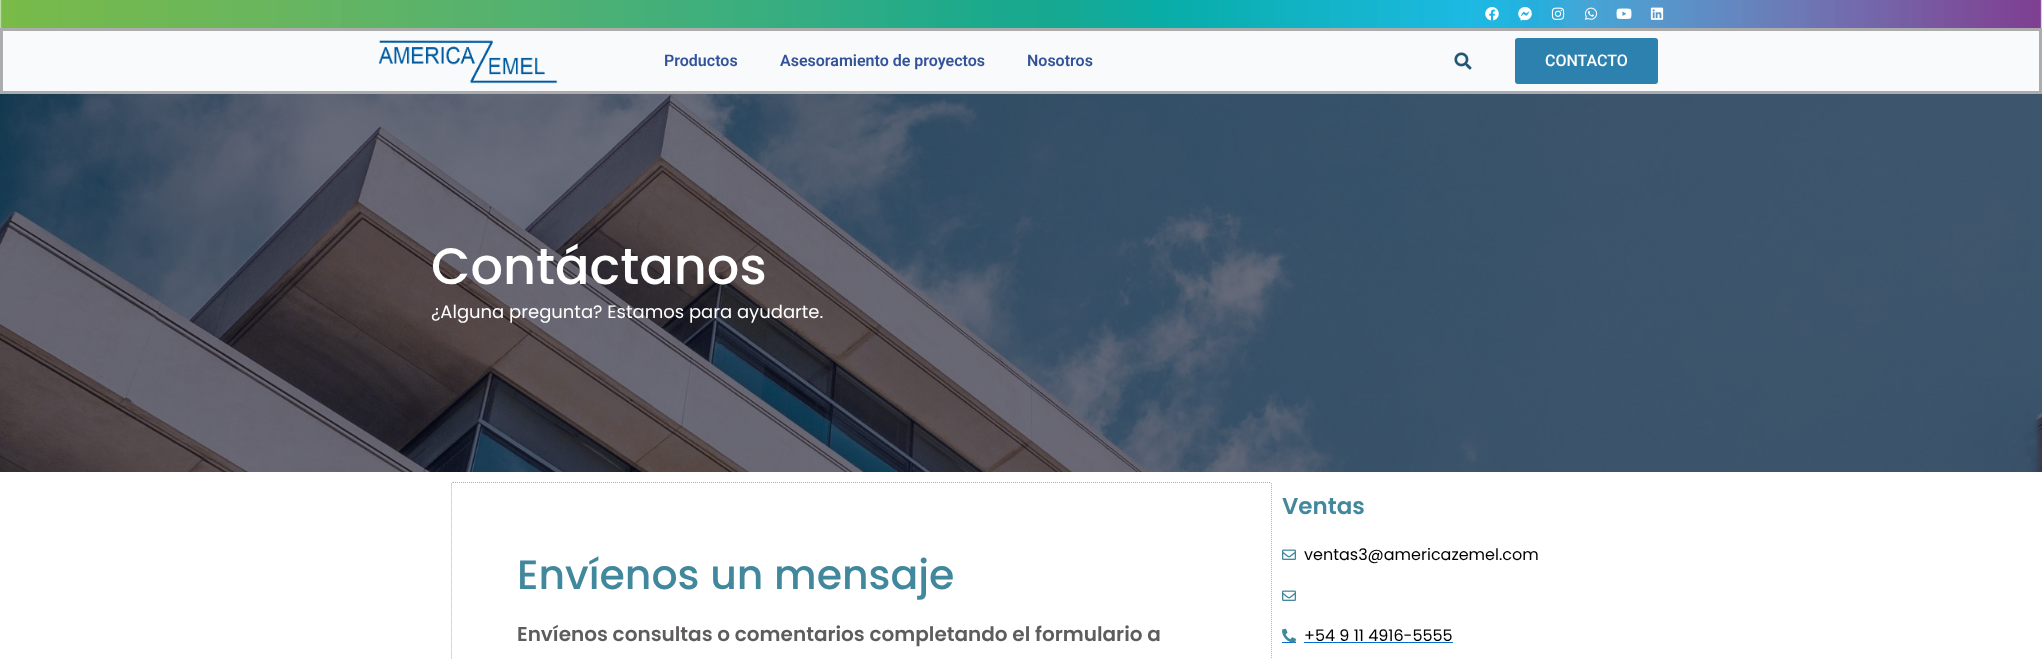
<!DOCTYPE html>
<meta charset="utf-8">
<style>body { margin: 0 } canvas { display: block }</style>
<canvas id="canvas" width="2042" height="659"></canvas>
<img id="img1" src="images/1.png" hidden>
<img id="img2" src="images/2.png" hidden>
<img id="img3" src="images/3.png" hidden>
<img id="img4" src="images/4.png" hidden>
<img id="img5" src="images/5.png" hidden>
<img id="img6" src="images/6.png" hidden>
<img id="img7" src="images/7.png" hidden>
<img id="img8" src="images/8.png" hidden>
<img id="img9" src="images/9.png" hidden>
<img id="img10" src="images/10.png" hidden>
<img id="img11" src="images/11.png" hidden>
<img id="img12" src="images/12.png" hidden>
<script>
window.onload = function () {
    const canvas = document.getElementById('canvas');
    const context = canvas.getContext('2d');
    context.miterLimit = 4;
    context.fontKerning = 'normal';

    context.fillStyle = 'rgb(255, 255, 255)';
    context.fillRect(0, 0, 2042, 659);
    context.drawImage(document.getElementById('img1'), 0, 0, 2042, 28);
    context.drawImage(document.getElementById('img2'), 1485, 7, 14, 14);
    context.drawImage(document.getElementById('img3'), 1518, 7, 14, 14);
    context.drawImage(document.getElementById('img4'), 1551, 7, 14, 13);
    context.drawImage(document.getElementById('img5'), 1584, 7, 14, 13);
    context.drawImage(document.getElementById('img6'), 1616, 8, 16, 11);
    context.drawImage(document.getElementById('img7'), 1650, 7, 14, 13);
    context.fillStyle = 'rgb(249, 250, 251)';
    context.beginPath();
    context.rect(1.5, 29.5, 2039, 63);
    context.fill();
    context.strokeStyle = 'rgb(172, 172, 172)';
    context.lineWidth = 3;
    context.stroke();
    context.drawImage(document.getElementById('img8'), 378, 40, 180, 44);
    context.drawImage(document.getElementById('img9'), 1454, 52, 18, 18);
    context.fillStyle = 'rgb(45, 129, 175)';
    context.beginPath();
    context.roundRect(1515, 38, 143, 46, 3);
    context.fill();
    context.drawImage(document.getElementById('img10'), 0, 94, 2042, 378);
    context.beginPath();
    context.moveTo(453, 482.5);
    context.lineTo(1270, 482.5);
    context.bezierCurveTo(1271, 482.5, 1271.5, 483, 1271.5, 484);
    context.lineTo(1271.5, 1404);
    context.bezierCurveTo(1271.5, 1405, 1271, 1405.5, 1270, 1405.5);
    context.lineTo(453, 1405.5);
    context.bezierCurveTo(452, 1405.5, 451.5, 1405, 451.5, 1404);
    context.lineTo(451.5, 484);
    context.bezierCurveTo(451.5, 483, 452, 482.5, 453, 482.5);
    context.closePath();
    context.strokeStyle = 'rgb(175, 175, 175)';
    context.lineWidth = 1;
    context.setLineDash([1, 1]);
    context.stroke();
    context.drawImage(document.getElementById('img11'), 1282, 549, 14, 11);
    context.drawImage(document.getElementById('img11'), 1282, 590, 14, 11);
    context.fillStyle = 'rgb(4, 107, 210)';
    context.fillRect(1282, 642, 14, 1);
    context.drawImage(document.getElementById('img12'), 1282, 628, 14, 15);
    context.fillRect(1304, 642, 149, 1);
    context.font = '600 16px Roboto';
    context.fillStyle = 'rgb(50, 82, 153)';
    context.fillText('Productos', 664, 66);
    context.fillText('Asesoramiento de proyectos', 780, 66);
    context.fillText('Nosotros', 1027, 66);
    context.font = '500 16px Roboto';
    context.fillStyle = 'rgb(255, 255, 255)';
    context.fillText('CONTACTO', 1545, 66);
    context.font = '500 51px Poppins';
    context.fillText('Contáctanos', 431, 284);
    context.font = '18px Poppins';
    context.fillText('¿Alguna pregunta? Estamos para ayudarte.', 431, 318);
    context.font = '500 41px Poppins';
    context.fillStyle = 'rgb(66, 136, 156)';
    context.fillText('Envíenos un mensaje', 517, 589);
    context.font = '600 20px Poppins';
    context.fillStyle = 'rgb(94, 92, 92)';
    context.fillText('Envíenos consultas o comentarios completando el formulario a', 517, 641);
    context.font = '600 23px Poppins';
    context.fillStyle = 'rgb(66, 136, 156)';
    context.fillText('Ventas', 1282, 514);
    context.font = '16px Poppins';
    context.fillStyle = 'rgb(0, 0, 0)';
    context.fillText('ventas3@americazemel.com', 1304, 560);
    context.fillText('+54 9 11 4916-5555', 1304, 641);
};
</script>
